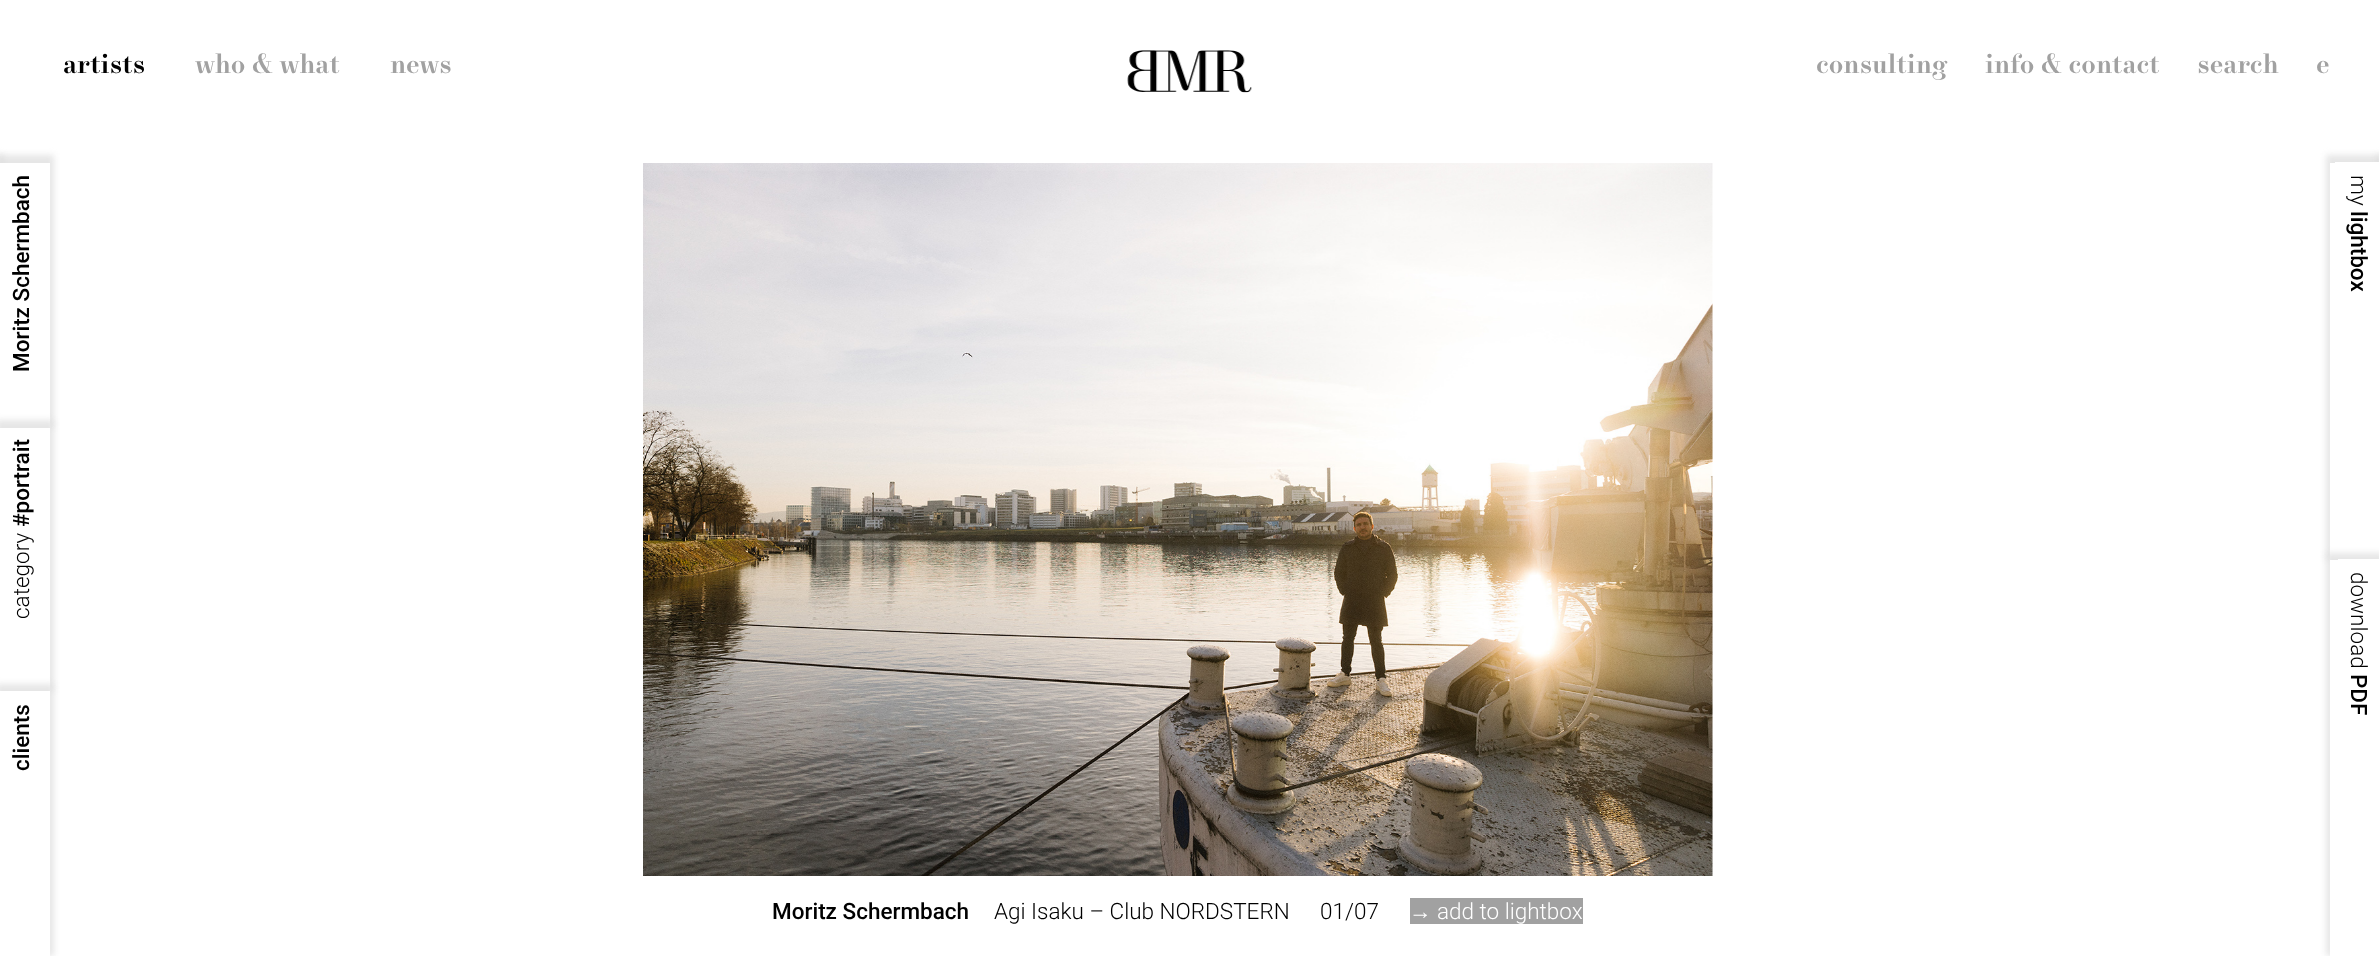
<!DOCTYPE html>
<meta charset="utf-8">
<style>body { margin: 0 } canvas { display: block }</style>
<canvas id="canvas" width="2379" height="956"></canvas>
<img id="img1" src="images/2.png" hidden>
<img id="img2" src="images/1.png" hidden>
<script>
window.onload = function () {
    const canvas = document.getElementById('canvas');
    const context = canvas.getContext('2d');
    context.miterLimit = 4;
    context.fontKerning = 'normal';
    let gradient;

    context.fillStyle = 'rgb(255, 255, 255)';
    context.fillRect(0, 0, 2379, 956);
    context.drawImage(document.getElementById('img1'), 643, 163, 1070, 713);
    gradient = context.createLinearGradient(1190, 0, 1190, 175);
    gradient.addColorStop(0.55, 'rgb(255, 255, 255)');
    gradient.addColorStop(1, 'rgba(255, 255, 255, 0)');
    context.fillStyle = gradient;
    context.fillRect(643, 163, 1068, 8);
    context.drawImage(document.getElementById('img2'), 1127, 50, 125, 43);
    context.fillStyle = 'rgba(222, 222, 222, 0.75)';
    context.filter = 'blur(3px)';
    context.beginPath();
    context.rect(-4, 155, 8, 789);
    context.fill();
    context.filter = 'none';
    context.filter = 'blur(3px)';
    context.beginPath();
    context.rect(-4, 155, 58, 273);
    context.fill();
    context.filter = 'none';
    context.fillStyle = 'rgb(255, 255, 255)';
    context.fillRect(0, 163, 50, 265);
    context.fillStyle = 'rgba(222, 222, 222, 0.75)';
    context.filter = 'blur(3px)';
    context.beginPath();
    context.rect(-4, 420, 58, 271);
    context.fill();
    context.filter = 'none';
    context.fillStyle = 'rgb(255, 255, 255)';
    context.fillRect(0, 428, 50, 263);
    context.fillStyle = 'rgba(222, 222, 222, 0.75)';
    context.filter = 'blur(3px)';
    context.beginPath();
    context.rect(-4, 684, 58, 272);
    context.fill();
    context.filter = 'none';
    context.fillStyle = 'rgb(255, 255, 255)';
    context.fillRect(0, 691, 50, 265);
    context.fillStyle = 'rgba(222, 222, 222, 0.75)';
    context.filter = 'blur(3px)';
    context.beginPath();
    context.rect(2326, 155, 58, 405);
    context.fill();
    context.filter = 'none';
    context.filter = 'blur(3px)';
    context.beginPath();
    context.rect(2376, 155, 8, 789);
    context.fill();
    context.filter = 'none';
    context.fillStyle = 'rgb(255, 255, 255)';
    context.fillRect(2330, 163, 49, 397);
    context.fillRect(2335, 162, 44, 1);
    context.fillStyle = 'rgba(222, 222, 222, 0.75)';
    context.filter = 'blur(3px)';
    context.beginPath();
    context.rect(2326, 553, 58, 403);
    context.fill();
    context.filter = 'none';
    context.fillStyle = 'rgb(255, 255, 255)';
    context.fillRect(2330, 560, 49, 396);
    context.fillRect(2338, 559, 41, 1);
    context.fillStyle = 'rgb(161, 161, 161)';
    context.fillRect(1410, 898, 173, 26);
    context.font = 'bold 27.5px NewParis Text';
    context.fillStyle = 'rgb(0, 0, 0)';
    context.fillText('artists', 63, 73);
    context.fillStyle = 'rgb(161, 161, 161)';
    context.fillText('who & what', 195, 73);
    context.fillText('news', 390, 73);
    context.fillText('consulting', 1816, 73);
    context.fillText('info & contact', 1985, 73);
    context.fillText('search', 2197, 73);
    context.fillText('e', 2316, 73);
    context.font = '500 22.5px Roboto';
    context.fillStyle = 'rgb(0, 0, 0)';
    context.save();
    context.translate(29, 372);
    context.rotate(-90 * Math.PI / 180);
    context.fillText('Moritz Schermbach', 0, 0);
    context.restore();
    context.save();
    context.translate(29, 527);
    context.rotate(-90 * Math.PI / 180);
    context.fillText('#portrait', 0, 0);
    context.restore();
    context.font = '300 22.5px Roboto';
    context.save();
    context.translate(29, 619);
    context.rotate(-90 * Math.PI / 180);
    context.fillText('category', 0, 0);
    context.restore();
    context.font = '500 22.5px Roboto';
    context.save();
    context.translate(29, 771);
    context.rotate(-90 * Math.PI / 180);
    context.fillText('clients', 0, 0);
    context.restore();
    context.font = '300 22.5px Roboto';
    context.save();
    context.translate(2351, 175);
    context.rotate(90 * Math.PI / 180);
    context.fillText('my', 0, 0);
    context.restore();
    context.font = '500 22.5px Roboto';
    context.save();
    context.translate(2351, 211);
    context.rotate(90 * Math.PI / 180);
    context.fillText('lightbox', 0, 0);
    context.restore();
    context.font = '300 22.5px Roboto';
    context.save();
    context.translate(2351, 572);
    context.rotate(90 * Math.PI / 180);
    context.fillText('download', 0, 0);
    context.restore();
    context.font = '500 22.5px Roboto';
    context.save();
    context.translate(2351, 674);
    context.rotate(90 * Math.PI / 180);
    context.fillText('PDF', 0, 0);
    context.restore();
    context.fillText('Moritz Schermbach', 772, 919);
    context.font = '300 22.5px Roboto';
    context.fillText('Agi Isaku – Club NORDSTERN', 994, 919);
    context.fillText('01/07', 1320, 919);
    context.font = '22.5px Liberation Sans';
    context.fillStyle = 'rgb(255, 255, 255)';
    context.fillText('→', 1409, 919);
    context.font = '300 22.5px Roboto';
    context.fillText('add to lightbox', 1437, 919);
};
</script>
